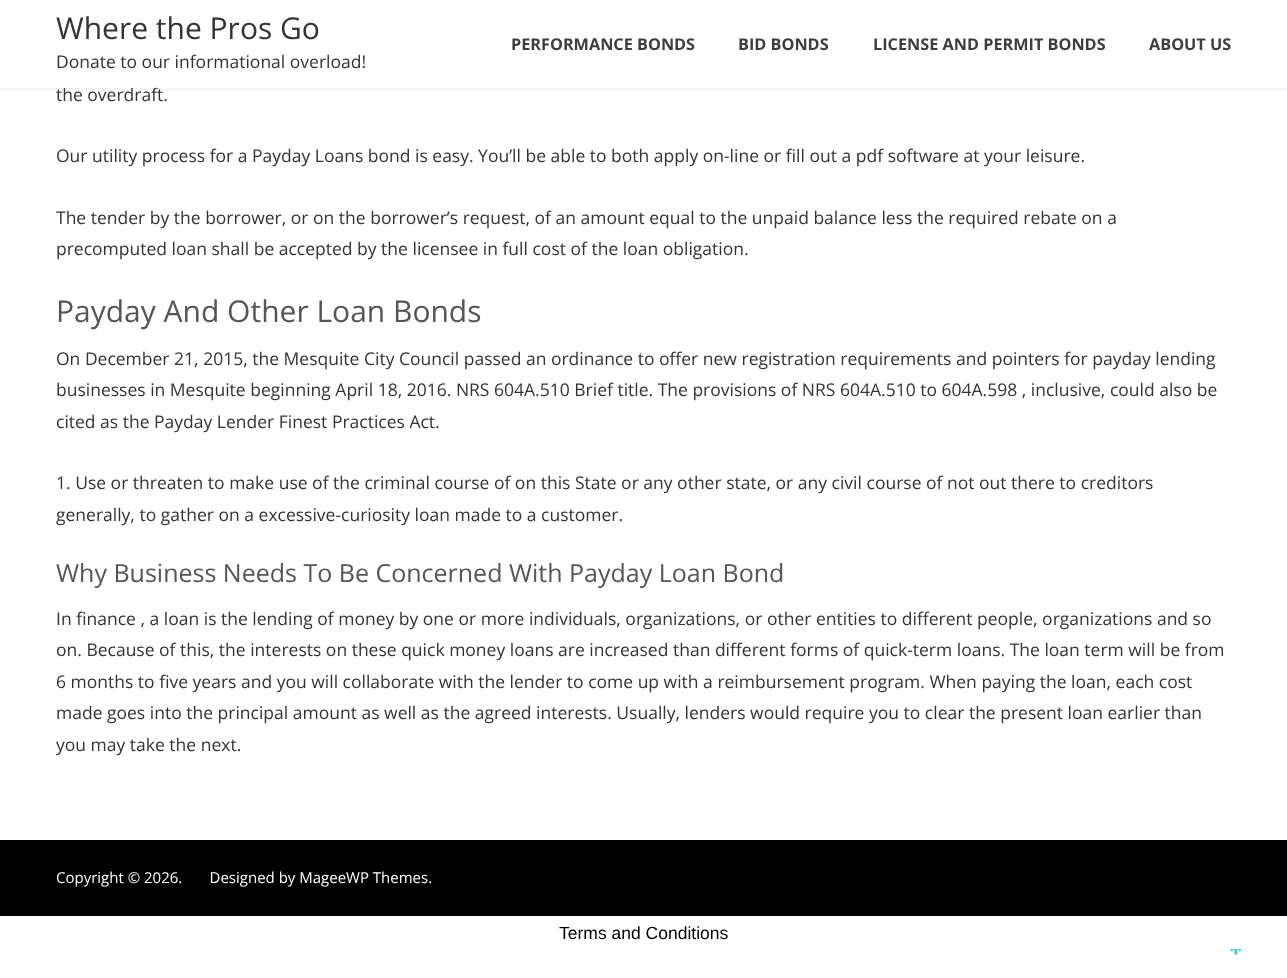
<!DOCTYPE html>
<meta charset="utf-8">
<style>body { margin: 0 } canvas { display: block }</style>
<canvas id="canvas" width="1287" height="978"></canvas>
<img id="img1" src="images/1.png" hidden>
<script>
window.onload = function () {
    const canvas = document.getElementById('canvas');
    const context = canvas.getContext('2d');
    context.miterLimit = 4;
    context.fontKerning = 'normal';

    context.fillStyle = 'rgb(255, 255, 255)';
    context.fillRect(0, 0, 1287, 978);
    context.save();
    context.beginPath();
    context.moveTo(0, 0);
    context.lineTo(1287, 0);
    context.lineTo(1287, 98);
    context.lineTo(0, 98);
    context.closePath();
    context.moveTo(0, 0);
    context.lineTo(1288, 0);
    context.lineTo(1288, 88);
    context.lineTo(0, 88);
    context.closePath();
    context.clip('evenodd');
    context.fillStyle = 'rgba(0, 0, 0, 0.1)';
    context.filter = 'blur(3px)';
    context.beginPath();
    context.rect(0, 0, 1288, 88);
    context.fill();
    context.filter = 'none';
    context.restore();
    context.fillStyle = 'rgb(0, 0, 0)';
    context.fillRect(0, 840, 1287, 76);
    context.drawImage(document.getElementById('img1'), 1230, 949, 12, 6);
    context.font = '30px Open Sans';
    context.fillStyle = 'rgb(51, 51, 51)';
    context.fillText('Where the Pros Go', 56, 39);
    context.font = '17.5px Open Sans';
    context.fillText('Donate to our informational overload!', 56, 68);
    context.font = 'bold 16.25px Open Sans';
    context.fillStyle = 'rgb(61, 61, 61)';
    context.fillText('PERFORMANCE BONDS', 511, 50);
    context.fillText('BID BONDS', 738, 50);
    context.fillText('LICENSE AND PERMIT BONDS', 873, 50);
    context.fillText('ABOUT US', 1149, 50);
    context.font = '17.5px Open Sans';
    context.fillStyle = 'rgb(51, 51, 51)';
    context.fillText('the overdraft.', 56, 101);
    context.fillStyle = 'rgba(255, 255, 255, 0.7)';
    context.fillRect(0, 87, 1287, 1);
    context.fillStyle = 'rgb(51, 51, 51)';
    context.fillText('Our utility process for a Payday Loans bond is easy. You’ll be able to both apply on-line or fill out a pdf software at your leisure.', 56, 162);
    context.fillText('The tender by the borrower, or on the borrower’s request, of an amount equal to the unpaid balance less the required rebate on a', 56, 224);
    context.fillText('precomputed loan shall be accepted by the licensee in full cost of the loan obligation.', 56, 255);
    context.font = '30px Open Sans';
    context.fillStyle = 'rgb(85, 85, 85)';
    context.fillText('Payday And Other Loan Bonds', 56, 322);
    context.font = '17.5px Open Sans';
    context.fillStyle = 'rgb(51, 51, 51)';
    context.fillText('On December 21, 2015, the Mesquite City Council passed an ordinance to offer new registration requirements and pointers for payday lending', 56, 365);
    context.fillText('businesses in Mesquite beginning April 18, 2016. NRS 604A.510 Brief title. The provisions of NRS 604A.510 to 604A.598 , inclusive, could also be', 56, 396);
    context.fillText('cited as the Payday Lender Finest Practices Act.', 56, 428);
    context.fillText('1. Use or threaten to make use of the criminal course of on this State or any other state, or any civil course of not out there to creditors', 56, 489);
    context.fillText('generally, to gather on a excessive-curiosity loan made to a customer.', 56, 521);
    context.font = '25px Open Sans';
    context.fillStyle = 'rgb(85, 85, 85)';
    context.fillText('Why Business Needs To Be Concerned With Payday Loan Bond', 56, 582);
    context.font = '17.5px Open Sans';
    context.fillStyle = 'rgb(51, 51, 51)';
    context.fillText('In finance , a loan is the lending of money by one or more individuals, organizations, or other entities to different people, organizations and so', 56, 625);
    context.fillText('on. Because of this, the interests on these quick money loans are increased than different forms of quick-term loans. The loan term will be from', 56, 656);
    context.fillText('6 months to five years and you will collaborate with the lender to come up with a reimbursement program. When paying the loan, each cost', 56, 688);
    context.fillText('made goes into the principal amount as well as the agreed interests. Usually, lenders would require you to clear the present loan earlier than', 56, 719);
    context.fillText('you may take the next.', 56, 751);
    context.font = '15px Open Sans';
    context.fillStyle = 'rgb(255, 255, 255)';
    context.fillText('Copyright © 2026.       Designed by MageeWP Themes.', 56, 883);
    context.font = '17.5px Liberation Sans';
    context.fillStyle = 'rgb(0, 0, 0)';
    context.fillText('Terms and Conditions', 559, 939);
};
</script>
